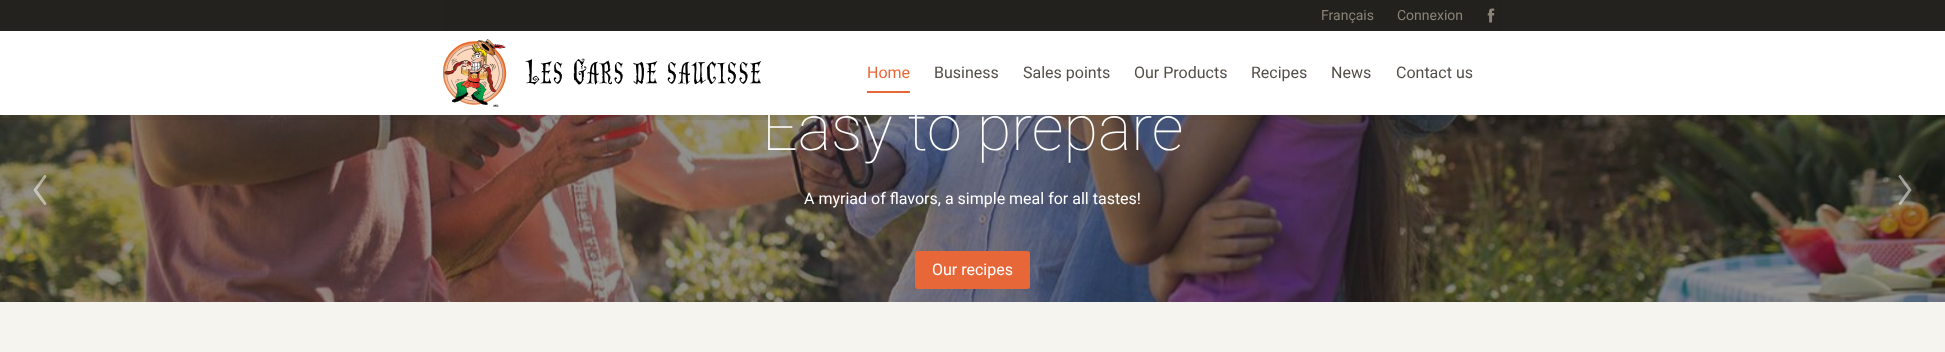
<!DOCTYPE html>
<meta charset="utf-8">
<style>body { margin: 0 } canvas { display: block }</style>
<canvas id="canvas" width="1945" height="352"></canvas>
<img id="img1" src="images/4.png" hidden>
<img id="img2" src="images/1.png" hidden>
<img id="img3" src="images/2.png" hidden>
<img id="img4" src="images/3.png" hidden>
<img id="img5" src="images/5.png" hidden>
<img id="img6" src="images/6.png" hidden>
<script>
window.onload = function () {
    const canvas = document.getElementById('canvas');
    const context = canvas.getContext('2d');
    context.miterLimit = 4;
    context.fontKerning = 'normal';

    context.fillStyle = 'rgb(246, 244, 239)';
    context.fillRect(0, 0, 1945, 352);
    context.fillStyle = 'rgb(36, 34, 31)';
    context.fillRect(0, 115, 1945, 187);
    context.drawImage(document.getElementById('img1'), 0, 115, 1945, 187);
    context.fillStyle = 'rgba(0, 0, 0, 0.05)';
    context.fillRect(0, 115, 1945, 5);
    context.fillStyle = 'rgb(255, 255, 255)';
    context.fillRect(0, 31, 1945, 84);
    context.fillStyle = 'rgb(36, 34, 31)';
    context.fillRect(0, 0, 1945, 31);
    context.drawImage(document.getElementById('img2'), 443, 0, 1059, 31);
    context.drawImage(document.getElementById('img3'), 1487, 8, 8, 15);
    context.drawImage(document.getElementById('img4'), 443, 39, 318, 68);
    context.fillStyle = 'rgb(232, 103, 57)';
    context.fillRect(867, 91, 43, 2);
    context.beginPath();
    context.roundRect(916, 252, 113, 36, 2);
    context.fill();
    context.strokeStyle = 'rgb(232, 103, 57)';
    context.lineWidth = 2;
    context.stroke();
    context.drawImage(document.getElementById('img5'), 33, 175, 14, 30);
    context.drawImage(document.getElementById('img6'), 1898, 175, 14, 30);
    context.font = '14px Roboto';
    context.fillStyle = 'rgb(138, 132, 119)';
    context.fillText('Français', 1321, 20);
    context.fillText('Connexion', 1397, 20);
    context.font = '16px Roboto';
    context.fillStyle = 'rgb(232, 103, 57)';
    context.fillText('Home', 867, 78);
    context.fillStyle = 'rgb(83, 79, 72)';
    context.fillText('Business', 934, 78);
    context.fillText('Sales points', 1023, 78);
    context.fillText('Our Products', 1134, 78);
    context.fillText('Recipes', 1251, 78);
    context.fillText('News', 1331, 78);
    context.fillText('Contact us', 1396, 78);
    context.font = '100 63px Roboto';
    context.fillStyle = 'rgb(255, 255, 255)';
    context.fillText('Easy to prepare', 762, 150);
    context.font = '16px Roboto';
    context.fillText('A myriad of flavors, a simple meal for all tastes!', 804, 204);
    context.fillText('Our recipes', 932, 275);
};
</script>
